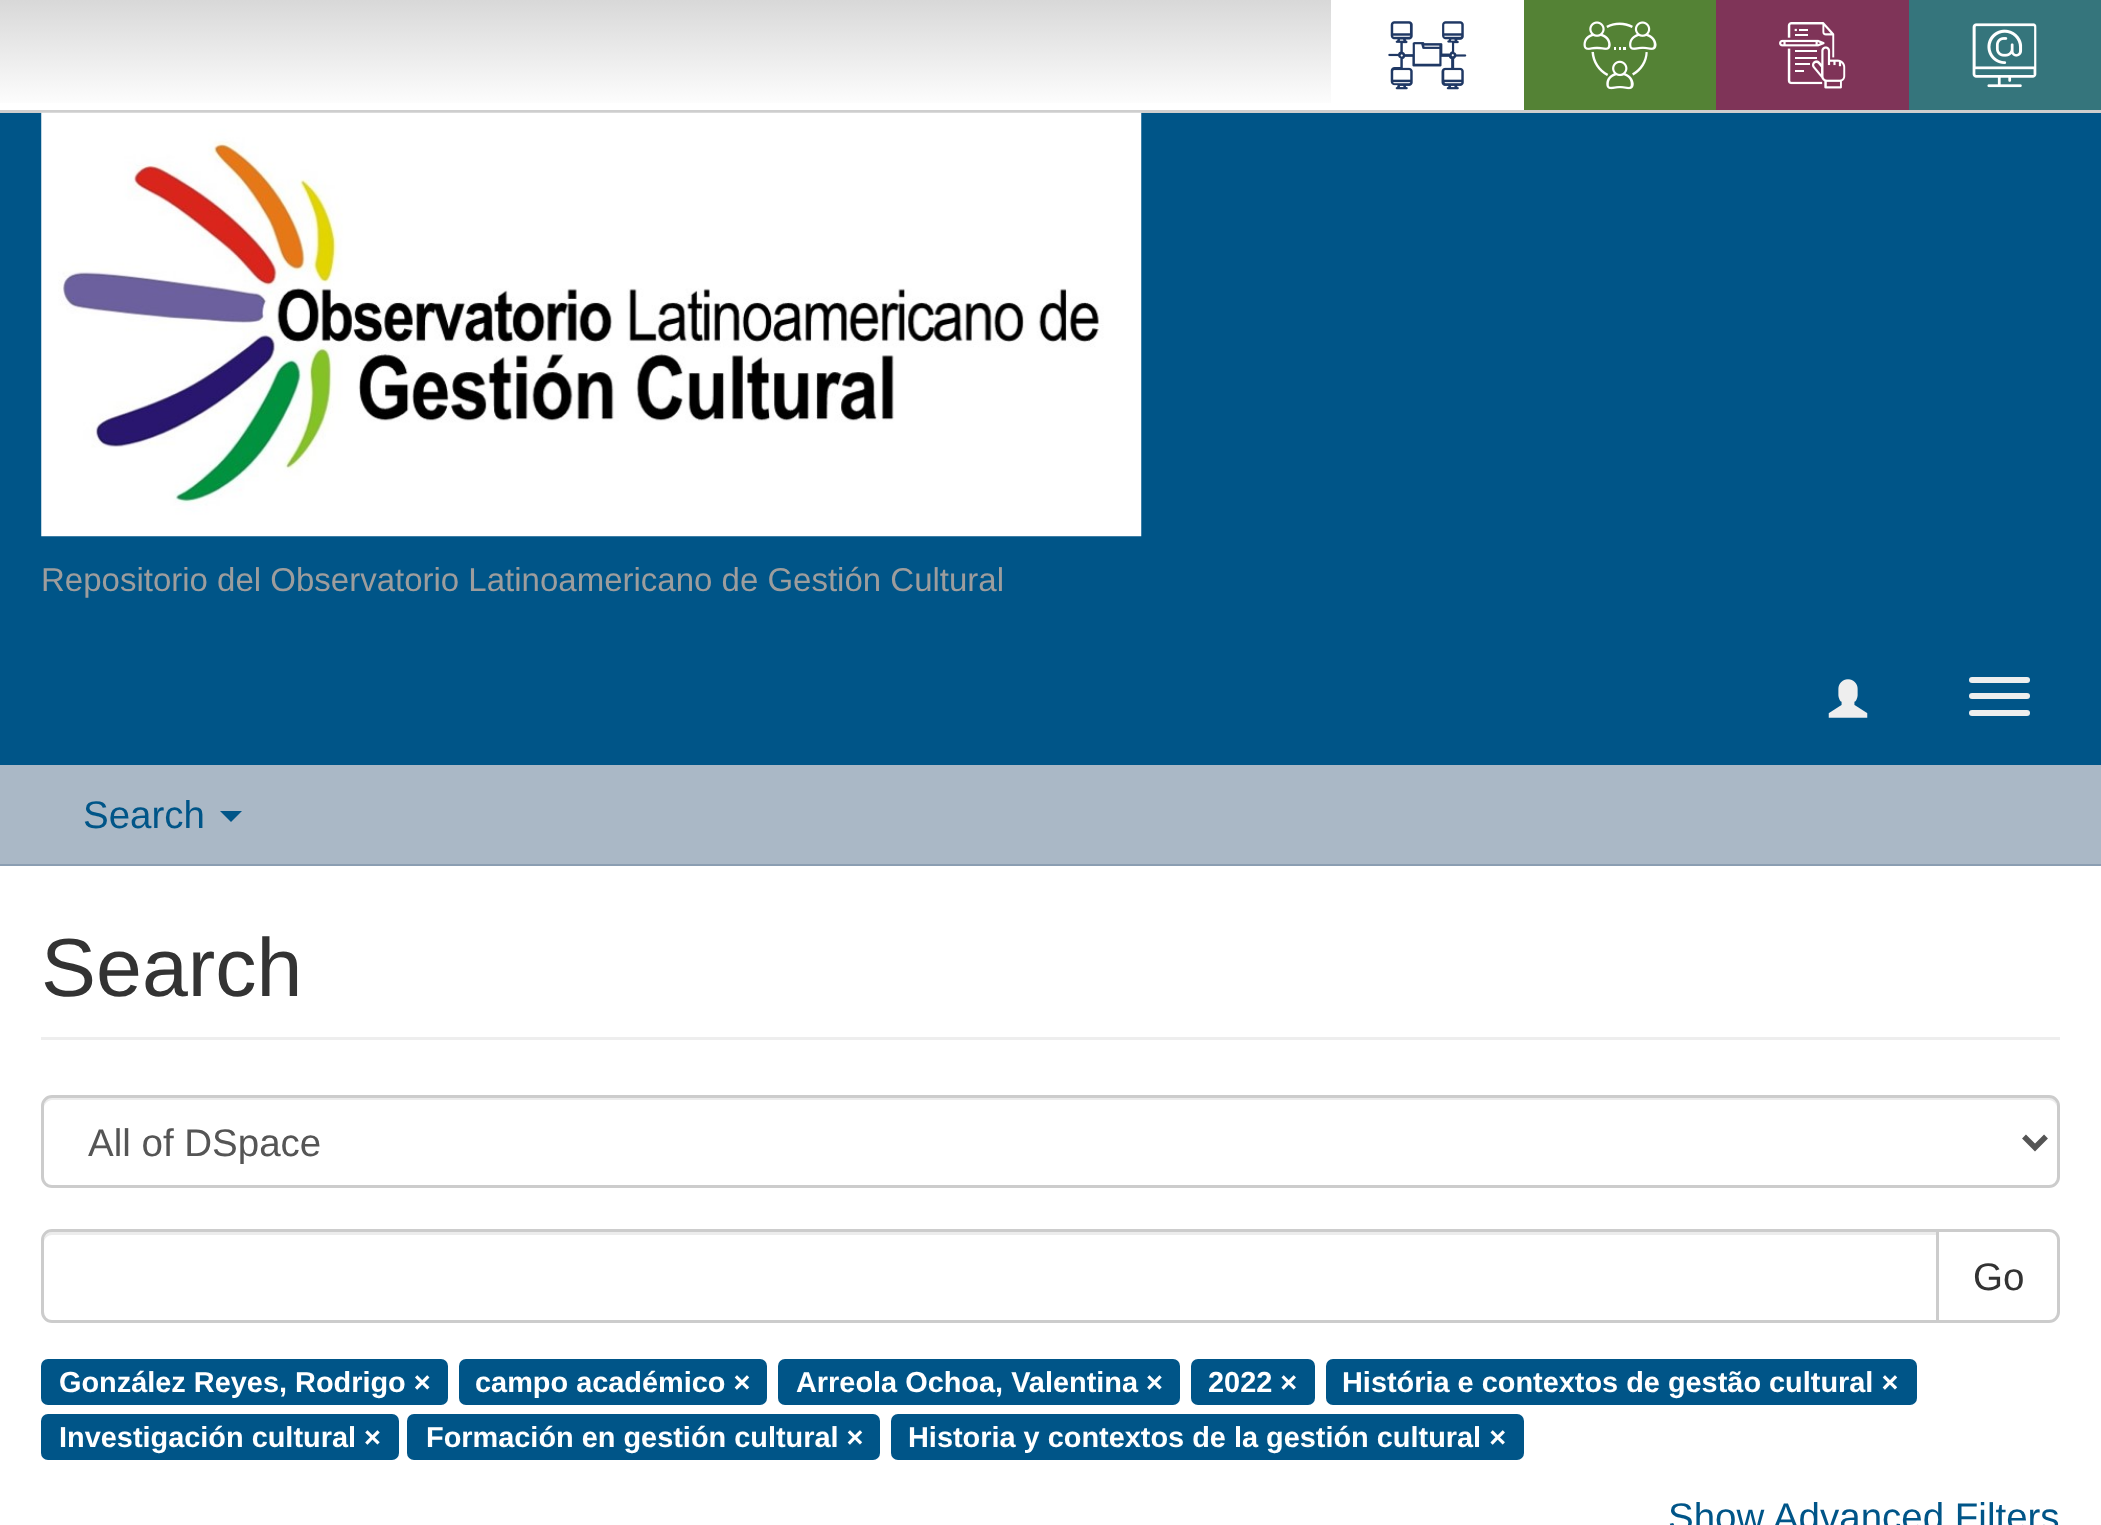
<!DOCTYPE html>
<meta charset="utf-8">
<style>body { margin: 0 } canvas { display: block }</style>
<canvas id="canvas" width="2101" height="1525"></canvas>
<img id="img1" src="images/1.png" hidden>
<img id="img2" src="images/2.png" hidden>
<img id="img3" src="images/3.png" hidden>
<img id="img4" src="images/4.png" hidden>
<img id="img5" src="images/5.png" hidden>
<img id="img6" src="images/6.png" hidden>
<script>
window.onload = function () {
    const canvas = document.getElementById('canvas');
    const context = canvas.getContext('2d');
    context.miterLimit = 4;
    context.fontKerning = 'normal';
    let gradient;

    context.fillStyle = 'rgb(255, 255, 255)';
    context.fillRect(0, 0, 2101, 1525);
    gradient = context.createLinearGradient(1051, 0, 1051, 110);
    gradient.addColorStop(0, 'rgb(0, 0, 0)');
    gradient.addColorStop(0, 'rgb(216, 216, 216)');
    gradient.addColorStop(1, 'rgb(255, 255, 255)');
    context.fillStyle = gradient;
    context.fillRect(0, 0, 1331, 103);
    context.fillStyle = 'rgb(206, 206, 206)';
    context.fillRect(0, 110, 2101, 3);
    context.drawImage(document.getElementById('img1'), 1388, 21, 79, 69);
    context.fillStyle = 'rgb(84, 130, 53)';
    context.fillRect(1524, 0, 192, 110);
    context.drawImage(document.getElementById('img2'), 1583, 21, 74, 69);
    context.fillStyle = 'rgb(127, 52, 88)';
    context.fillRect(1716, 0, 193, 110);
    context.drawImage(document.getElementById('img3'), 1779, 22, 67, 67);
    context.fillStyle = 'rgb(53, 117, 124)';
    context.fillRect(1909, 0, 192, 110);
    context.drawImage(document.getElementById('img4'), 1972, 23, 65, 65);
    context.fillStyle = 'rgb(0, 85, 136)';
    context.fillRect(0, 113, 2101, 652);
    context.drawImage(document.getElementById('img5'), 41, 112, 1101, 425);
    context.drawImage(document.getElementById('img6'), 1828, 679, 40, 39);
    context.fillStyle = 'rgb(238, 238, 238)';
    context.beginPath();
    context.roundRect(1969, 677, 61, 6, 3);
    context.fill();
    context.beginPath();
    context.roundRect(1969, 693, 61, 6, 3);
    context.fill();
    context.beginPath();
    context.roundRect(1969, 710, 61, 6, 3);
    context.fill();
    context.fillStyle = 'rgb(170, 184, 198)';
    context.fillRect(0, 765, 2101, 99);
    context.fillStyle = 'rgb(139, 158, 178)';
    context.fillRect(0, 864, 2101, 2);
    context.fillStyle = 'rgb(0, 85, 136)';
    context.beginPath();
    context.moveTo(220, 811);
    context.lineTo(242, 811);
    context.lineTo(231, 822);
    context.closePath();
    context.fill();
    context.fillStyle = 'rgb(238, 238, 238)';
    context.fillRect(41, 1037, 2019, 3);
    context.fillStyle = 'rgb(236, 236, 236)';
    context.beginPath();
    context.moveTo(52, 1100);
    context.lineTo(2049, 1100);
    context.bezierCurveTo(2053, 1100, 2057, 1104, 2057, 1108);
    context.bezierCurveTo(2057, 1103, 2055, 1097, 2049, 1097);
    context.lineTo(52, 1097);
    context.bezierCurveTo(46, 1097, 44, 1103, 44, 1108);
    context.bezierCurveTo(44, 1104, 48, 1100, 52, 1100);
    context.closePath();
    context.fill();
    context.beginPath();
    context.roundRect(42.5, 1096.5, 2016, 90, 9.5);
    context.strokeStyle = 'rgb(204, 204, 204)';
    context.lineWidth = 3;
    context.stroke();
    context.beginPath();
    context.moveTo(2024, 1136.5);
    context.lineTo(2035, 1147.5);
    context.lineTo(2046, 1136.5);
    context.strokeStyle = 'rgb(85, 85, 85)';
    context.lineWidth = 5.5;
    context.stroke();
    context.beginPath();
    context.roundRect(1937.5, 1230.5, 121, 91, [0, 9.5, 9.5, 0]);
    context.strokeStyle = 'rgb(204, 204, 204)';
    context.lineWidth = 3;
    context.stroke();
    context.fillStyle = 'rgb(255, 255, 255)';
    context.beginPath();
    context.roundRect(41, 1229, 1898, 94, [11, 0, 0, 11]);
    context.fill();
    context.fillStyle = 'rgb(236, 236, 236)';
    context.beginPath();
    context.moveTo(52, 1235);
    context.lineTo(1936, 1235);
    context.lineTo(1936, 1232);
    context.lineTo(52, 1232);
    context.bezierCurveTo(48, 1232, 44, 1236, 44, 1240);
    context.lineTo(44, 1243);
    context.bezierCurveTo(44, 1238, 48, 1235, 52, 1235);
    context.closePath();
    context.fill();
    context.beginPath();
    context.roundRect(42.5, 1230.5, 1895, 91, [9.5, 0, 0, 9.5]);
    context.stroke();
    context.fillStyle = 'rgb(0, 85, 136)';
    context.beginPath();
    context.roundRect(41, 1359, 407, 46, 7);
    context.fill();
    context.beginPath();
    context.roundRect(459, 1359, 308, 46, 7);
    context.fill();
    context.beginPath();
    context.roundRect(778, 1359, 402, 46, 7);
    context.fill();
    context.beginPath();
    context.roundRect(1191, 1359, 124, 46, 7);
    context.fill();
    context.beginPath();
    context.roundRect(1326, 1359, 591, 46, 7);
    context.fill();
    context.beginPath();
    context.roundRect(41, 1414, 358, 46, 7);
    context.fill();
    context.beginPath();
    context.roundRect(407, 1414, 473, 46, 7);
    context.fill();
    context.beginPath();
    context.roundRect(891, 1414, 633, 46, 7);
    context.fill();
    context.font = '33px Liberation Sans';
    context.fillStyle = 'rgb(157, 157, 157)';
    context.fillText('Repositorio del Observatorio Latinoamericano de Gestión Cultural', 41, 591);
    context.font = '38.5px Liberation Sans';
    context.fillStyle = 'rgb(0, 85, 136)';
    context.fillText('Search', 83, 828);
    context.font = '82.5px Liberation Sans';
    context.fillStyle = 'rgb(51, 51, 51)';
    context.fillText('Search', 41, 996);
    context.font = '38.5px Liberation Sans';
    context.fillStyle = 'rgb(85, 85, 85)';
    context.fillText('All of DSpace', 88, 1156);
    context.fillStyle = 'rgb(51, 51, 51)';
    context.fillText('Go', 1973, 1290);
    context.font = 'bold 28.9px Liberation Sans';
    context.fillStyle = 'rgb(255, 255, 255)';
    context.fillText('González Reyes, Rodrigo ×', 59, 1392);
    context.fillText('campo académico ×', 475, 1392);
    context.fillText('Arreola Ochoa, Valentina ×', 796, 1392);
    context.fillText('2022 ×', 1208, 1392);
    context.fillText('História e contextos de gestão cultural ×', 1342, 1392);
    context.fillText('Investigación cultural ×', 59, 1447);
    context.fillText('Formación en gestión cultural ×', 426, 1447);
    context.fillText('Historia y contextos de la gestión cultural ×', 908, 1447);
    context.font = '38.5px Liberation Sans';
    context.fillStyle = 'rgb(0, 85, 136)';
    context.fillText('Show Advanced Filters', 1668, 1530);
};
</script>
